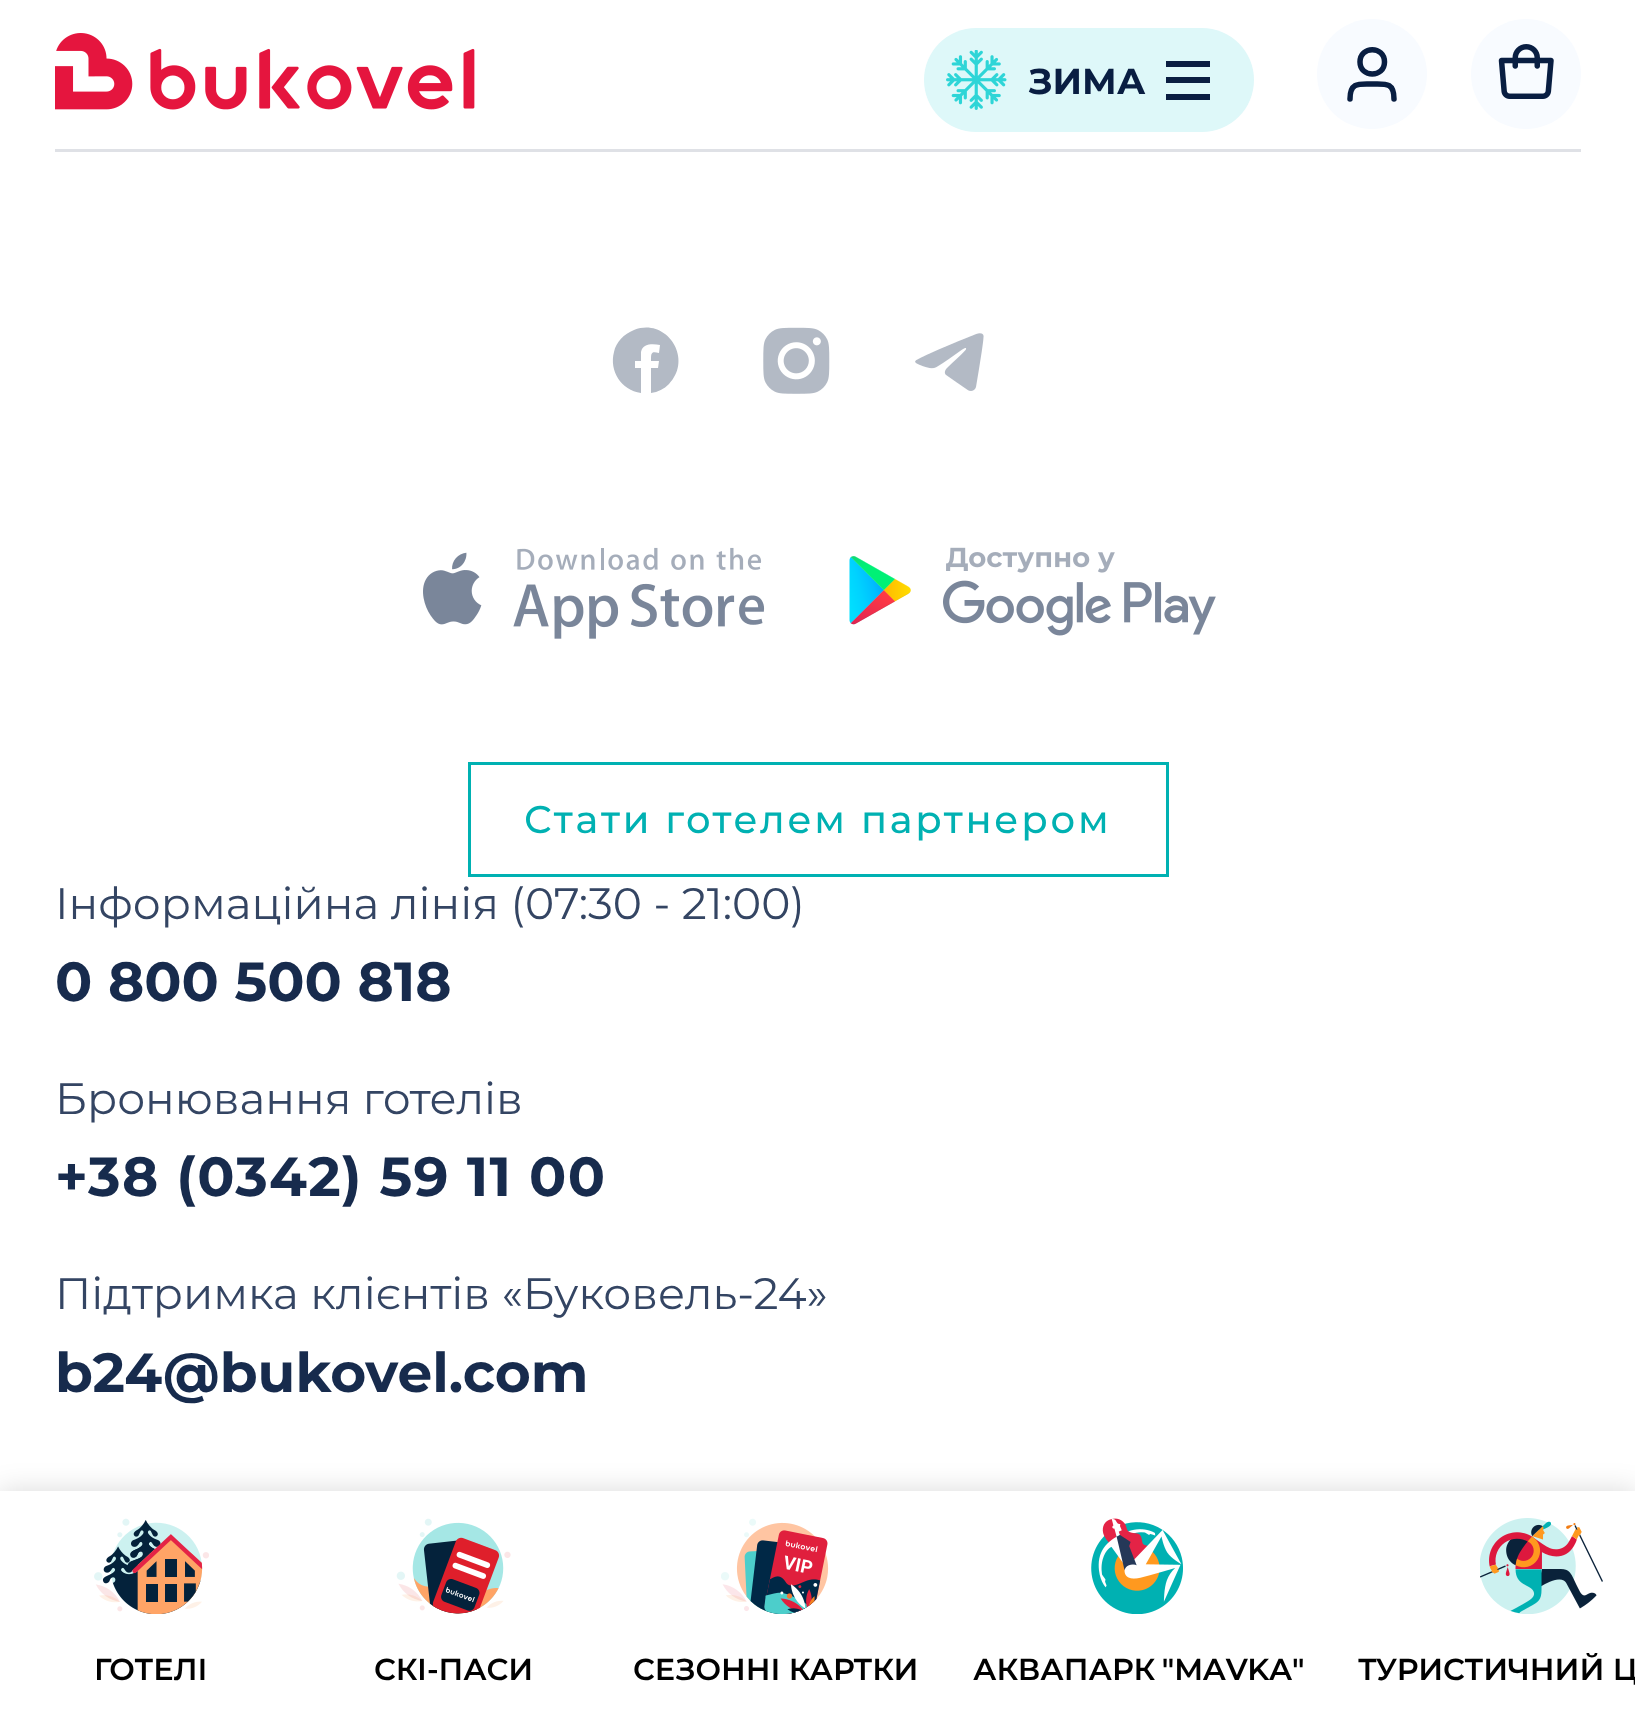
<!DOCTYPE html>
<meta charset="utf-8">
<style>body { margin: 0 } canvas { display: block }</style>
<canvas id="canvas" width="1635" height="1736"></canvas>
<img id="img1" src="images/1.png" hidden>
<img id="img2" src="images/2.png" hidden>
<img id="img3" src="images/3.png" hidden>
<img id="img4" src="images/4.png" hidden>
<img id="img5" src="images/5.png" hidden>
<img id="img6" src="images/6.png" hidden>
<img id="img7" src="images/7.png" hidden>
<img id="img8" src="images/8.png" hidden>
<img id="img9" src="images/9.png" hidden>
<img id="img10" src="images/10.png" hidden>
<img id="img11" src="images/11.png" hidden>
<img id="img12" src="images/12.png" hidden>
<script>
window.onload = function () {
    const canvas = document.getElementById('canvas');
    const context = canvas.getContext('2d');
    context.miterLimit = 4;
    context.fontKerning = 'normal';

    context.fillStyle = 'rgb(255, 255, 255)';
    context.fillRect(0, 0, 1635, 1736);
    context.fillStyle = 'rgb(223, 225, 230)';
    context.fillRect(55, 149, 1526, 3);
    context.drawImage(document.getElementById('img1'), 55, 33, 420, 77);
    context.fillStyle = 'rgb(222, 248, 249)';
    context.beginPath();
    context.roundRect(924, 28, 330, 104, 52);
    context.fill();
    context.drawImage(document.getElementById('img2'), 946, 50, 61, 60);
    context.fillStyle = 'rgb(9, 30, 66)';
    context.fillRect(1166, 77, 44, 6);
    context.fillRect(1166, 61, 44, 6);
    context.fillRect(1166, 94, 44, 6);
    context.fillStyle = 'rgb(248, 251, 255)';
    context.beginPath();
    context.arc(1372, 74, 55, 0, 2 * Math.PI);
    context.fill();
    context.beginPath();
    context.moveTo(1394, 99);
    context.bezierCurveTo(1394, 82, 1385.5, 84, 1372, 84);
    context.bezierCurveTo(1359, 84, 1350, 82, 1350, 99);
    context.moveTo(1384.5, 62);
    context.bezierCurveTo(1384.5, 78, 1360, 78, 1360, 62);
    context.bezierCurveTo(1360, 45.5, 1384.5, 45.5, 1384.5, 62);
    context.closePath();
    context.strokeStyle = 'rgb(9, 30, 66)';
    context.lineWidth = 5.5;
    context.lineCap = 'round';
    context.lineJoin = 'round';
    context.stroke();
    context.beginPath();
    context.arc(1526, 74, 55, 0, 2 * Math.PI);
    context.fill();
    context.drawImage(document.getElementById('img3'), 1498, 44, 56, 55);
    context.fillStyle = 'rgb(179, 186, 197)';
    context.beginPath();
    context.moveTo(651, 393);
    context.bezierCurveTo(658, 392, 664, 389, 669, 384);
    context.bezierCurveTo(694, 358, 666, 317, 634, 330);
    context.bezierCurveTo(624, 334, 616, 342, 614, 352);
    context.bezierCurveTo(609, 371, 621, 390, 641, 393);
    context.lineTo(641, 368);
    context.lineTo(635, 368);
    context.lineTo(635, 361);
    context.lineTo(641, 361);
    context.lineTo(641, 352);
    context.bezierCurveTo(643, 343, 653, 344, 660, 345);
    context.lineTo(659, 353);
    context.bezierCurveTo(651, 351, 651, 353, 651, 361);
    context.lineTo(659, 361);
    context.lineTo(658, 368);
    context.lineTo(651, 368);
    context.closePath();
    context.fill('evenodd');
    context.drawImage(document.getElementById('img4'), 763, 327, 67, 67);
    context.drawImage(document.getElementById('img5'), 915, 333, 69, 58);
    context.drawImage(document.getElementById('img6'), 423, 547, 342, 92);
    context.drawImage(document.getElementById('img7'), 849, 547, 367, 89);
    context.strokeStyle = 'rgb(0, 177, 178)';
    context.lineWidth = 3;
    context.lineJoin = 'miter';
    context.strokeRect(469.5, 763.5, 698, 112);
    context.fillStyle = 'rgba(0, 0, 0, 0.15)';
    context.filter = 'blur(14px)';
    context.beginPath();
    context.rect(0, 1491, 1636, 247);
    context.fill();
    context.filter = 'none';
    context.fillStyle = 'rgb(255, 255, 255)';
    context.fillRect(0, 1491, 1635, 245);
    context.drawImage(document.getElementById('img8'), 94, 1518, 115, 96);
    context.drawImage(document.getElementById('img9'), 396, 1518, 115, 96);
    context.drawImage(document.getElementById('img10'), 721, 1518, 108, 96);
    context.drawImage(document.getElementById('img11'), 1091, 1518, 92, 96);
    context.drawImage(document.getElementById('img12'), 1480, 1518, 123, 96);
    context.font = 'bold 36px Montserrat';
    context.fillStyle = 'rgb(9, 30, 66)';
    context.fillText('ЗИМА', 1029, 94);
    context.letterSpacing = '2.75px';
    context.font = '500 38.5px Montserrat';
    context.fillStyle = 'rgb(0, 177, 178)';
    context.fillText('Стати готелем партнером', 524, 833);
    context.letterSpacing = '0px';
    context.font = '44px Montserrat';
    context.fillStyle = 'rgb(52, 69, 99)';
    context.fillText('Інформаційна лінія (07:30 - 21:00)', 55, 919);
    context.font = 'bold 55px Montserrat';
    context.fillStyle = 'rgb(23, 43, 77)';
    context.fillText('0 800 500 818', 55, 1001);
    context.font = '44px Montserrat';
    context.fillStyle = 'rgb(52, 69, 99)';
    context.fillText('Бронювання готелів', 55, 1114);
    context.letterSpacing = '1.25px';
    context.font = 'bold 55px Montserrat';
    context.fillStyle = 'rgb(23, 43, 77)';
    context.fillText('+38 (0342) 59 11 00', 55, 1196);
    context.letterSpacing = '0px';
    context.font = '44px Montserrat';
    context.fillStyle = 'rgb(52, 69, 99)';
    context.fillText('Підтримка клієнтів «Буковель-24»', 55, 1309);
    context.font = 'bold 55px Montserrat';
    context.fillStyle = 'rgb(23, 43, 77)';
    context.fillText('b24@bukovel.com', 55, 1392);
    context.font = '600 30.25px Montserrat';
    context.fillStyle = 'rgb(0, 0, 0)';
    context.fillText('ГОТЕЛІ', 94, 1680);
    context.fillText('СКІ-ПАСИ', 374, 1680);
    context.fillText('СЕЗОННІ КАРТКИ', 633, 1680);
    context.wordSpacing = '-2px';
    context.fillText('АКВАПАРК "MAVKA"', 973, 1680);
    context.wordSpacing = '0px';
    context.fillText('ТУРИСТИЧНИЙ Ц', 1358, 1680);
};
</script>
